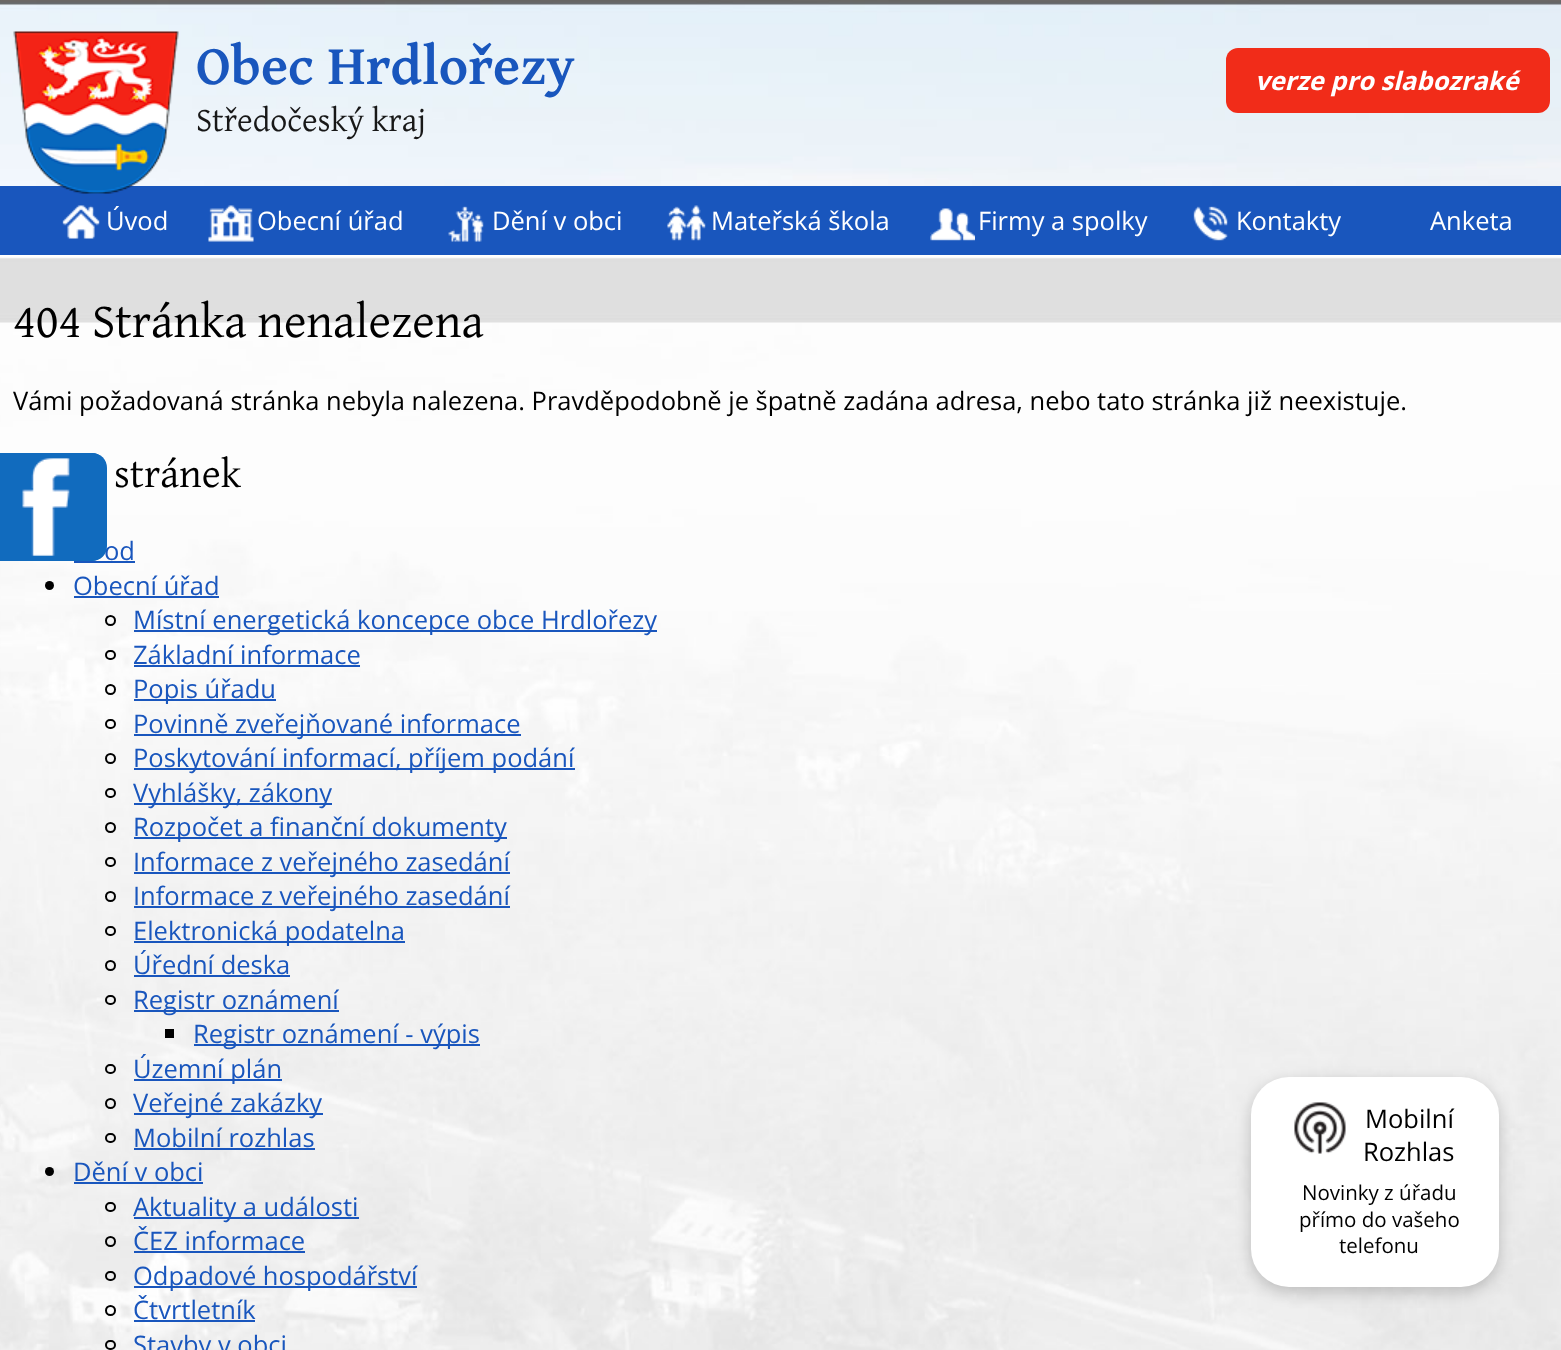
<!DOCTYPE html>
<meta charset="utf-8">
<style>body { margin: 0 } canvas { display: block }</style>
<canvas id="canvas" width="1561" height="1350"></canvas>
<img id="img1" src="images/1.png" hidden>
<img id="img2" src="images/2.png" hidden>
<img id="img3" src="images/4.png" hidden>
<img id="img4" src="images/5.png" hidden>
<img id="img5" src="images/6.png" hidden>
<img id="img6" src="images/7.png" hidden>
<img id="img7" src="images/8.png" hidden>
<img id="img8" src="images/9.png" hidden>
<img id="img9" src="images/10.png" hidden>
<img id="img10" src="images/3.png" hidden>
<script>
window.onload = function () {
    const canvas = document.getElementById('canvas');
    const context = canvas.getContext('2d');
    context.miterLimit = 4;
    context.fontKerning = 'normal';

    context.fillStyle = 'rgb(255, 255, 255)';
    context.fillRect(0, 0, 1561, 1350);
    context.drawImage(document.getElementById('img1'), 0, 0, 1561, 1350);
    context.fillStyle = 'rgb(25, 86, 189)';
    context.fillRect(0, 186, 1561, 69);
    context.drawImage(document.getElementById('img2'), 13, 31, 166, 163);
    context.fillStyle = 'rgb(241, 44, 25)';
    context.beginPath();
    context.roundRect(1226, 48, 324, 65, 12);
    context.fill();
    context.fillStyle = 'rgba(0, 0, 0, 0.2)';
    context.filter = 'blur(7.5px)';
    context.beginPath();
    context.roundRect(1251, 1082, 248, 210, 38);
    context.fill();
    context.filter = 'none';
    context.fillStyle = 'rgb(255, 255, 255)';
    context.beginPath();
    context.roundRect(1251, 1077, 248, 210, 38);
    context.fill();
    context.drawImage(document.getElementById('img3'), 1294, 1102, 52, 52);
    context.drawImage(document.getElementById('img4'), 62, 205, 38, 34);
    context.drawImage(document.getElementById('img5'), 208, 205, 46, 37);
    context.drawImage(document.getElementById('img6'), 448, 206, 36, 36);
    context.drawImage(document.getElementById('img7'), 667, 205, 39, 36);
    context.drawImage(document.getElementById('img8'), 930, 208, 45, 33);
    context.drawImage(document.getElementById('img9'), 1193, 206, 35, 35);
    context.fillStyle = 'rgb(25, 86, 189)';
    context.fillRect(74, 561, 61, 2);
    context.fillStyle = 'rgb(0, 0, 0)';
    context.beginPath();
    context.arc(49.5, 585.5, 4.5, 0, 2 * Math.PI);
    context.fill();
    context.fillStyle = 'rgb(25, 86, 189)';
    context.fillRect(74, 596, 145, 2);
    context.beginPath();
    context.arc(110.5, 620.5, 4.5, 0, 2 * Math.PI);
    context.strokeStyle = 'rgb(0, 0, 0)';
    context.lineWidth = 2;
    context.stroke();
    context.fillRect(134, 630, 523, 2);
    context.beginPath();
    context.roundRect(106, 651, 9, 8, 4);
    context.stroke();
    context.fillRect(134, 665, 226, 2);
    context.beginPath();
    context.arc(110.5, 689.5, 4.5, 0, 2 * Math.PI);
    context.stroke();
    context.fillRect(134, 699, 142, 2);
    context.beginPath();
    context.roundRect(106, 720, 9, 8, 4);
    context.stroke();
    context.fillRect(134, 734, 387, 2);
    context.beginPath();
    context.arc(110.5, 758.5, 4.5, 0, 2 * Math.PI);
    context.stroke();
    context.fillRect(134, 768, 441, 2);
    context.beginPath();
    context.roundRect(106, 789, 9, 8, 4);
    context.stroke();
    context.fillRect(134, 803, 198, 2);
    context.beginPath();
    context.arc(110.5, 827.5, 4.5, 0, 2 * Math.PI);
    context.stroke();
    context.fillRect(134, 837, 373, 2);
    context.beginPath();
    context.roundRect(106, 858, 9, 8, 4);
    context.stroke();
    context.fillRect(134, 872, 376, 2);
    context.beginPath();
    context.arc(110.5, 896.5, 4.5, 0, 2 * Math.PI);
    context.stroke();
    context.fillRect(134, 906, 376, 2);
    context.beginPath();
    context.roundRect(106, 927, 9, 8, 4);
    context.stroke();
    context.fillRect(134, 941, 271, 2);
    context.beginPath();
    context.arc(110.5, 965.5, 4.5, 0, 2 * Math.PI);
    context.stroke();
    context.fillRect(134, 975, 156, 2);
    context.beginPath();
    context.roundRect(106, 996, 9, 8, 4);
    context.stroke();
    context.fillRect(134, 1010, 205, 2);
    context.fillStyle = 'rgb(0, 0, 0)';
    context.fillRect(165, 1029, 9, 9);
    context.fillStyle = 'rgb(25, 86, 189)';
    context.fillRect(194, 1044, 286, 2);
    context.beginPath();
    context.roundRect(106, 1065, 9, 8, 4);
    context.stroke();
    context.fillRect(134, 1079, 148, 2);
    context.beginPath();
    context.arc(110.5, 1103.5, 4.5, 0, 2 * Math.PI);
    context.stroke();
    context.fillRect(134, 1113, 189, 2);
    context.beginPath();
    context.roundRect(106, 1134, 9, 8, 4);
    context.stroke();
    context.fillRect(134, 1148, 181, 2);
    context.fillStyle = 'rgb(0, 0, 0)';
    context.beginPath();
    context.arc(49.5, 1171.5, 4.5, 0, 2 * Math.PI);
    context.fill();
    context.fillStyle = 'rgb(25, 86, 189)';
    context.fillRect(74, 1182, 129, 2);
    context.beginPath();
    context.roundRect(106, 1203, 9, 8, 4);
    context.stroke();
    context.fillRect(134, 1217, 225, 2);
    context.beginPath();
    context.arc(110.5, 1241.5, 4.5, 0, 2 * Math.PI);
    context.stroke();
    context.fillRect(134, 1251, 171, 2);
    context.beginPath();
    context.roundRect(106, 1272, 9, 8, 4);
    context.stroke();
    context.fillRect(134, 1286, 283, 2);
    context.beginPath();
    context.arc(110.5, 1310.5, 4.5, 0, 2 * Math.PI);
    context.stroke();
    context.fillRect(134, 1320, 121, 2);
    context.beginPath();
    context.roundRect(106, 1341, 9, 8, 4);
    context.stroke();
    context.font = 'bold 56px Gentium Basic';
    context.fillText('Obec Hrdlořezy', 196, 84);
    context.font = '33.75px Gentium Basic';
    context.fillStyle = 'rgb(24, 24, 24)';
    context.fillText('Středočeský kraj', 196, 131);
    context.font = 'italic bold 25.5px Open Sans';
    context.fillStyle = 'rgb(255, 255, 255)';
    context.fillText('verze pro slabozraké', 1255, 90);
    context.font = '25.5px Open Sans';
    context.fillStyle = 'rgb(0, 0, 0)';
    context.fillText('Mobilní', 1365, 1128);
    context.fillText('Rozhlas', 1363, 1161);
    context.font = '20.5px Open Sans';
    context.fillText('Novinky z úřadu', 1302, 1200);
    context.fillText('přímo do vašeho', 1299, 1227);
    context.fillText('telefonu', 1339, 1253);
    context.font = '25.5px Open Sans';
    context.fillStyle = 'rgb(255, 255, 255)';
    context.fillText('Úvod', 106, 230);
    context.fillText('Obecní úřad', 257, 230);
    context.fillText('Dění v obci', 492, 230);
    context.fillText('Mateřská škola', 711, 230);
    context.fillText('Firmy a spolky', 978, 230);
    context.fillText('Kontakty', 1236, 230);
    context.fillText('Anketa', 1430, 230);
    context.font = '48.5px Gentium Basic';
    context.fillStyle = 'rgb(0, 0, 0)';
    context.fillText('404 Stránka nenalezena', 13, 337);
    context.font = '25.5px Open Sans';
    context.fillText('Vámi požadovaná stránka nebyla nalezena. Pravděpodobně je špatně zadána adresa, nebo tato stránka již neexistuje.', 13, 410);
    context.font = '41px Gentium Basic';
    context.fillText('stránek', 114, 487);
    context.font = '25.5px Open Sans';
    context.fillStyle = 'rgb(25, 86, 189)';
    context.fillText('od', 104, 560);
    context.fillStyle = 'rgb(17, 107, 190)';
    context.beginPath();
    context.moveTo(-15, 453);
    context.lineTo(92, 453);
    context.bezierCurveTo(100.5, 453, 107, 459.5, 107, 468);
    context.lineTo(107, 546);
    context.bezierCurveTo(107, 554.5, 100.5, 561, 92, 561);
    context.lineTo(-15, 561);
    context.closePath();
    context.fill();
    context.drawImage(document.getElementById('img10'), 22, 453, 85, 108);
    context.fillStyle = 'rgb(25, 86, 189)';
    context.fillText('Obecní úřad', 73, 595);
    context.fillText('Místní energetická koncepce obce Hrdlořezy', 133, 629);
    context.fillText('Základní informace', 133, 664);
    context.fillText('Popis úřadu', 133, 698);
    context.fillText('Povinně zveřejňované informace', 133, 733);
    context.fillText('Poskytování informací, příjem podání', 133, 767);
    context.fillText('Vyhlášky, zákony', 133, 802);
    context.fillText('Rozpočet a finanční dokumenty', 133, 836);
    context.fillText('Informace z veřejného zasedání', 133, 871);
    context.fillText('Informace z veřejného zasedání', 133, 905);
    context.fillText('Elektronická podatelna', 133, 940);
    context.fillText('Úřední deska', 133, 974);
    context.fillText('Registr oznámení', 133, 1009);
    context.fillText('Registr oznámení - výpis', 193, 1043);
    context.fillText('Územní plán', 133, 1078);
    context.fillText('Veřejné zakázky', 133, 1112);
    context.fillText('Mobilní rozhlas', 133, 1147);
    context.fillText('Dění v obci', 73, 1181);
    context.fillText('Aktuality a události', 133, 1216);
    context.fillText('ČEZ informace', 133, 1250);
    context.fillText('Odpadové hospodářství', 133, 1285);
    context.fillText('Čtvrtletník', 133, 1319);
    context.fillText('Stavby v obci', 133, 1354);
};
</script>
